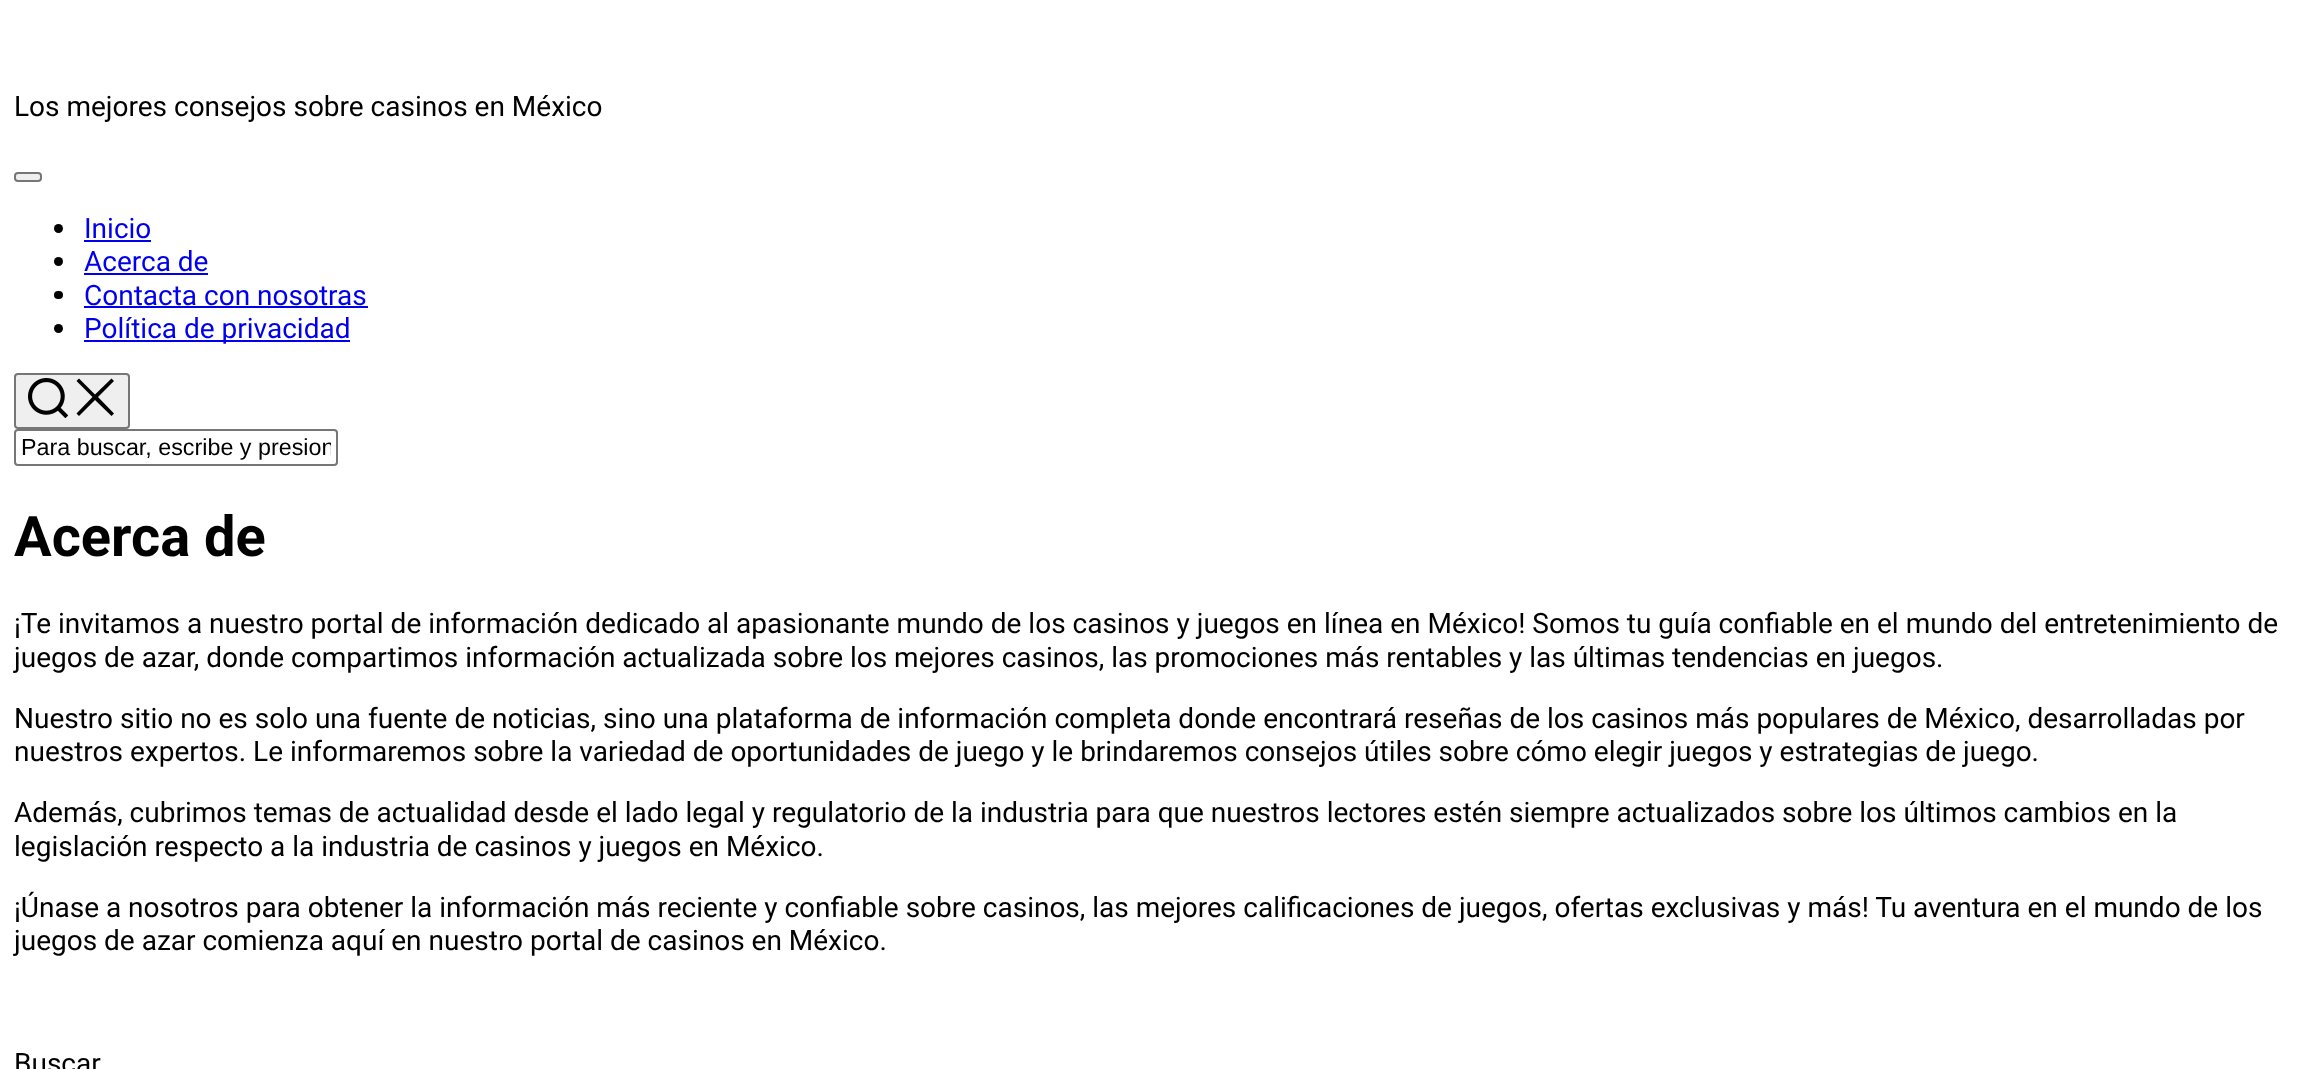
<!DOCTYPE html>
<meta charset="utf-8">
<style>body { margin: 0 } canvas { display: block }</style>
<canvas id="canvas" width="2299" height="1069"></canvas>
<img id="img1" src="images/1.png" hidden>
<script>
window.onload = function () {
    const canvas = document.getElementById('canvas');
    const context = canvas.getContext('2d');
    context.miterLimit = 4;
    context.fontKerning = 'normal';

    context.fillStyle = 'rgb(255, 255, 255)';
    context.fillRect(0, 0, 2299, 1069);
    context.fillStyle = 'rgb(239, 239, 239)';
    context.beginPath();
    context.roundRect(15, 173, 26, 8, 3);
    context.fill();
    context.strokeStyle = 'rgb(118, 118, 118)';
    context.lineWidth = 2;
    context.stroke();
    context.fillStyle = 'rgb(0, 0, 0)';
    context.beginPath();
    context.arc(58.5, 228.5, 4.5, 0, 2 * Math.PI);
    context.fill();
    context.fillStyle = 'rgb(0, 0, 238)';
    context.fillRect(84, 240, 67, 2);
    context.fillStyle = 'rgb(0, 0, 0)';
    context.beginPath();
    context.arc(58.5, 261.5, 4.5, 0, 2 * Math.PI);
    context.fill();
    context.fillStyle = 'rgb(0, 0, 238)';
    context.fillRect(84, 273, 124, 2);
    context.fillStyle = 'rgb(0, 0, 0)';
    context.beginPath();
    context.roundRect(54, 291, 9, 8, 4);
    context.fill();
    context.fillStyle = 'rgb(0, 0, 238)';
    context.fillRect(84, 306, 284, 2);
    context.fillStyle = 'rgb(0, 0, 0)';
    context.beginPath();
    context.arc(58.5, 328.5, 4.5, 0, 2 * Math.PI);
    context.fill();
    context.fillStyle = 'rgb(0, 0, 238)';
    context.fillRect(84, 340, 266, 2);
    context.fillStyle = 'rgb(239, 239, 239)';
    context.beginPath();
    context.roundRect(15, 374, 114, 54, 3);
    context.fill();
    context.stroke();
    context.drawImage(document.getElementById('img1'), 28, 378, 40, 40);
    context.fillStyle = 'rgb(0, 0, 0)';
    context.beginPath();
    context.moveTo(92.5, 397);
    context.lineTo(76.5, 381);
    context.lineTo(79, 378.5);
    context.lineTo(95, 394.5);
    context.lineTo(111.5, 378.5);
    context.lineTo(114, 381);
    context.lineTo(98, 397);
    context.lineTo(114, 413.5);
    context.lineTo(111.5, 416);
    context.lineTo(95, 400);
    context.lineTo(79, 416);
    context.lineTo(76.5, 413.5);
    context.closePath();
    context.fill('evenodd');
    context.beginPath();
    context.roundRect(15, 430, 322, 35, 3);
    context.stroke();
    context.font = '28px Roboto';
    context.fillText('Los mejores consejos sobre casinos en México', 14, 116);
    context.fillStyle = 'rgb(0, 0, 238)';
    context.fillText('Inicio', 84, 238);
    context.fillText('Acerca de', 84, 271);
    context.fillText('Contacta con nosotras', 84, 305);
    context.fillText('Política de privacidad', 84, 338);
    context.save();
    context.beginPath();
    context.rect(21, 434, 310, 26);
    context.clip();
    context.font = '23.3px Liberation Sans';
    context.fillStyle = 'rgb(0, 0, 0)';
    context.fillText('Para buscar, escribe y presion', 21, 455);
    context.restore();
    context.font = 'bold 56px Roboto';
    context.fillStyle = 'rgb(0, 0, 0)';
    context.fillText('Acerca de', 14, 556);
    context.font = '28px Roboto';
    context.fillText('¡Te invitamos a nuestro portal de información dedicado al apasionante mundo de los casinos y juegos en línea en México! Somos tu guía confiable en el mundo del entretenimiento de', 14, 633);
    context.fillText('juegos de azar, donde compartimos información actualizada sobre los mejores casinos, las promociones más rentables y las últimas tendencias en juegos.', 14, 667);
    context.fillText('Nuestro sitio no es solo una fuente de noticias, sino una plataforma de información completa donde encontrará reseñas de los casinos más populares de México, desarrolladas por', 14, 728);
    context.fillText('nuestros expertos. Le informaremos sobre la variedad de oportunidades de juego y le brindaremos consejos útiles sobre cómo elegir juegos y estrategias de juego.', 14, 761);
    context.fillText('Además, cubrimos temas de actualidad desde el lado legal y regulatorio de la industria para que nuestros lectores estén siempre actualizados sobre los últimos cambios en la', 14, 822);
    context.fillText('legislación respecto a la industria de casinos y juegos en México.', 14, 856);
    context.fillText('¡Únase a nosotros para obtener la información más reciente y confiable sobre casinos, las mejores calificaciones de juegos, ofertas exclusivas y más! Tu aventura en el mundo de los', 14, 917);
    context.fillText('juegos de azar comienza aquí en nuestro portal de casinos en México.', 14, 950);
    context.fillText('Buscar', 14, 1073);
};
</script>
